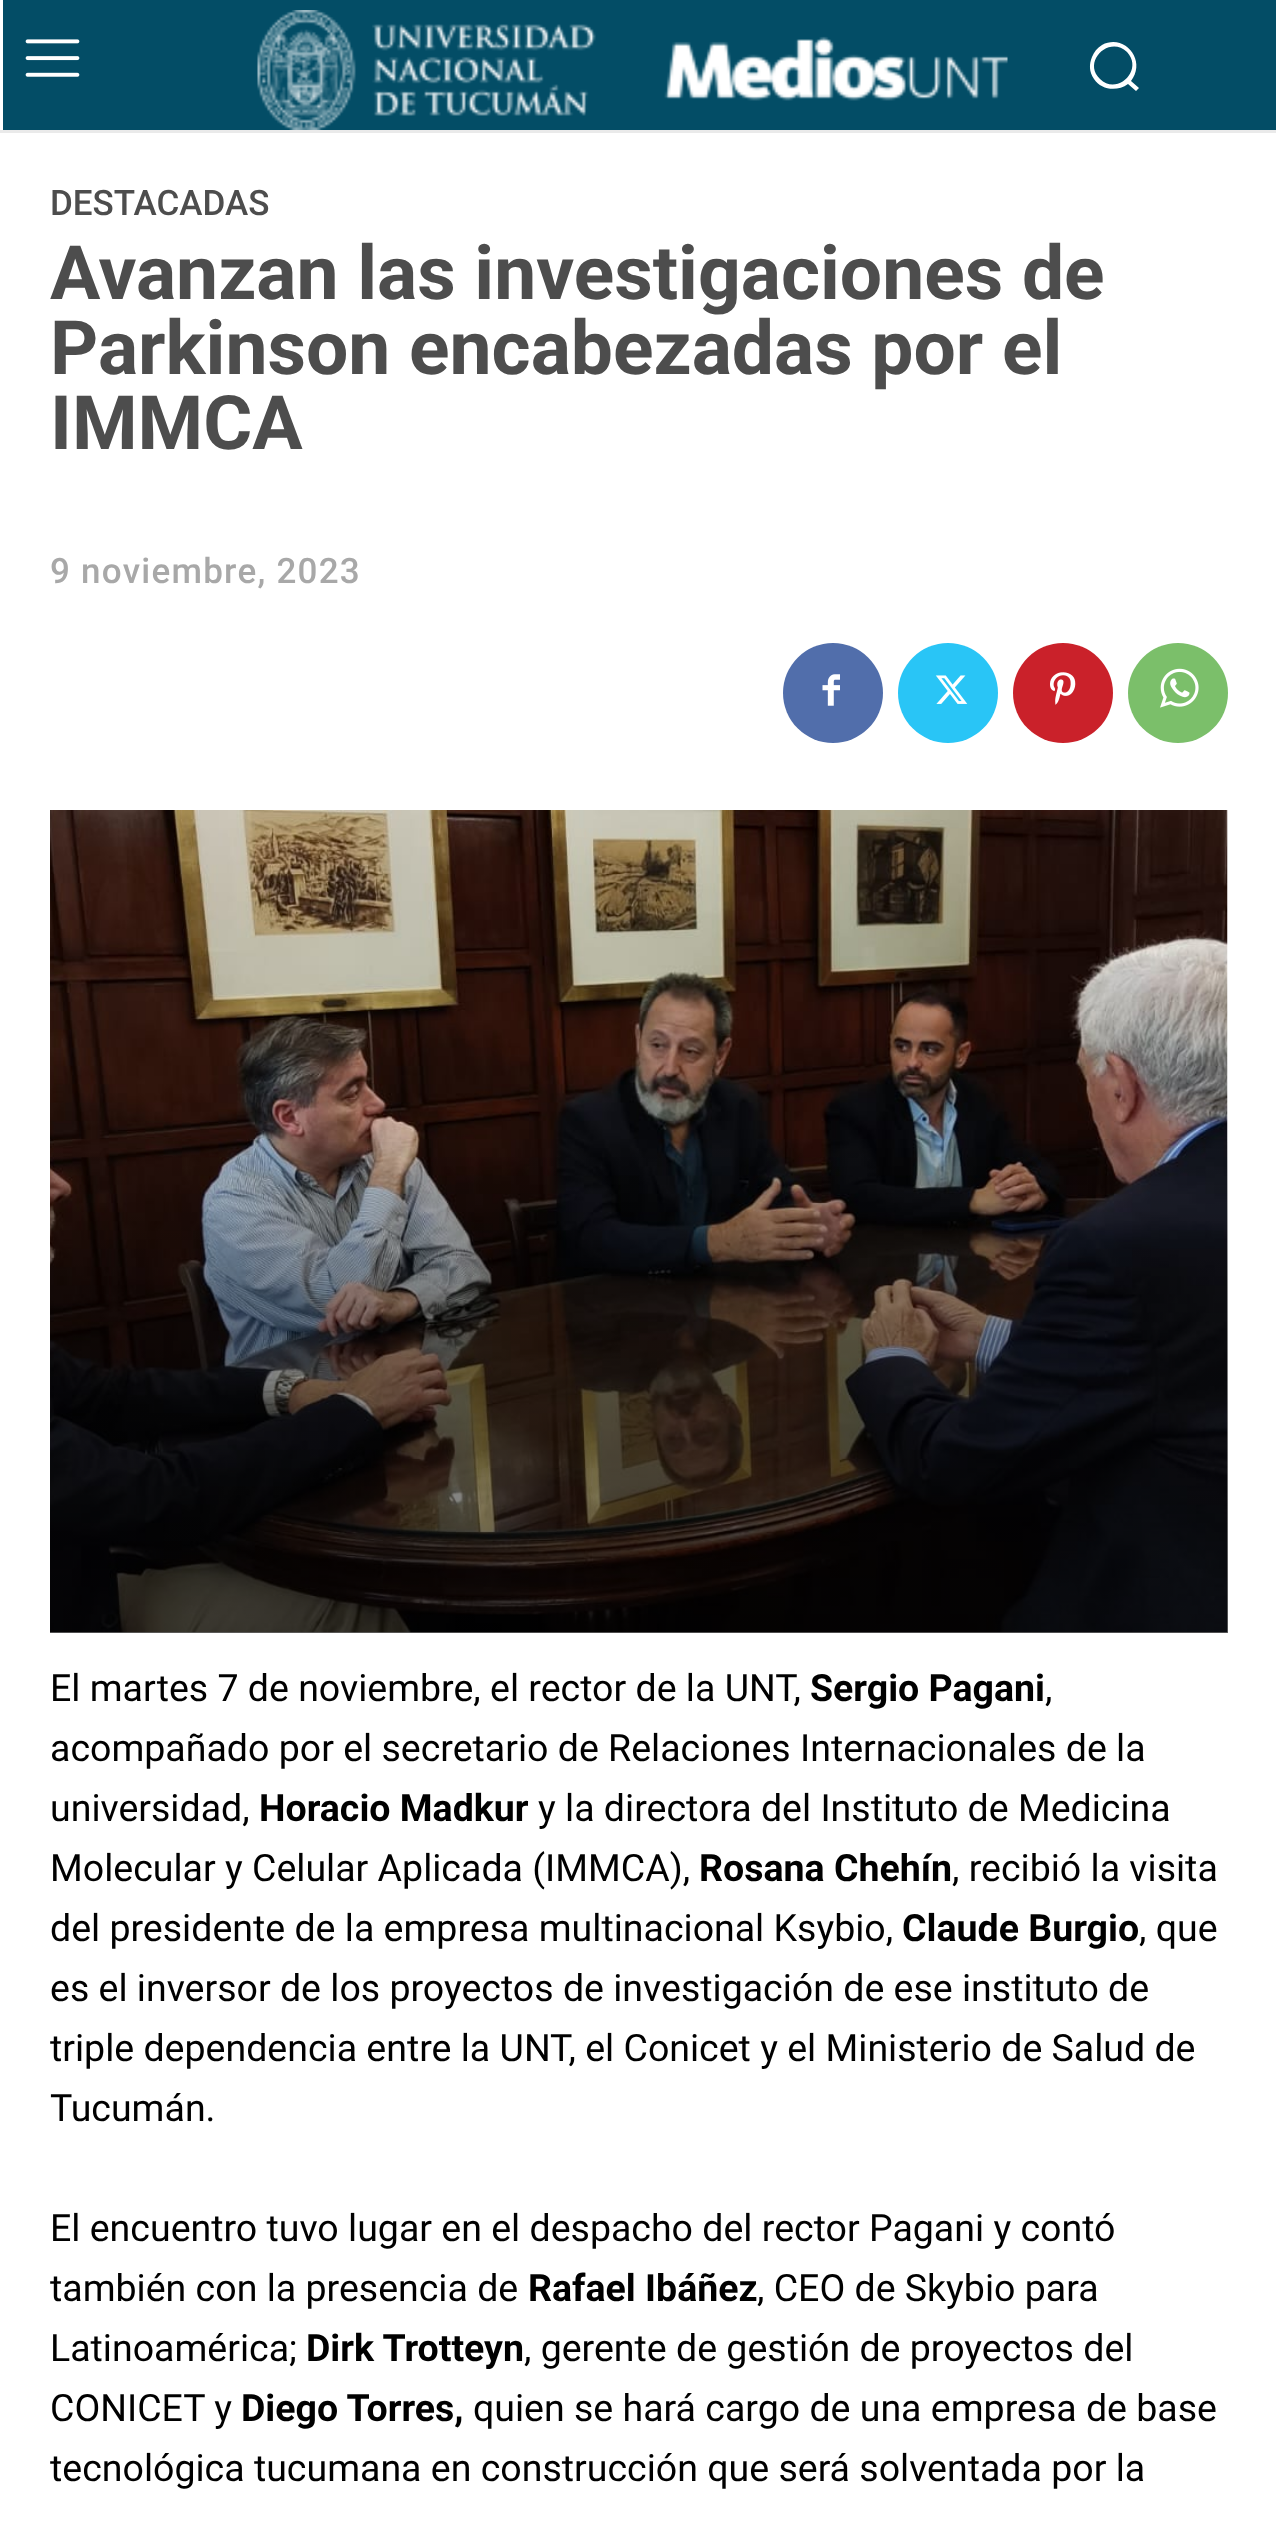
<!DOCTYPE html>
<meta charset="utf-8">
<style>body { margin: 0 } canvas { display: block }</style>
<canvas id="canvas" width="1276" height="2522"></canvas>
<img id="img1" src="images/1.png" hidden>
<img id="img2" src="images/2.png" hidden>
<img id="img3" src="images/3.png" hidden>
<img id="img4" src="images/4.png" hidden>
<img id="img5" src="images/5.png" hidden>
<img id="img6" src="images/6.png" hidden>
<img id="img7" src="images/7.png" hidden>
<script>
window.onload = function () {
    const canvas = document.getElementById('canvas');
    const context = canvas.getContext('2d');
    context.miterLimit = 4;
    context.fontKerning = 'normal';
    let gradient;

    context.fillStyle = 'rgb(255, 255, 255)';
    context.fillRect(0, 0, 1276, 2522);
    context.fillStyle = 'rgb(234, 234, 234)';
    context.fillRect(0, 130, 1276, 3);
    context.fillStyle = 'rgb(3, 77, 102)';
    context.fillRect(3, 0, 1273, 130);
    context.drawImage(document.getElementById('img1'), 25, 39, 55, 38);
    context.drawImage(document.getElementById('img2'), 257, 10, 751, 120);
    context.fillStyle = 'rgb(255, 255, 255)';
    context.beginPath();
    context.moveTo(1139, 88);
    context.lineTo(1131, 81);
    context.bezierCurveTo(1147, 61, 1125, 33, 1102, 45);
    context.bezierCurveTo(1097, 48, 1094, 52, 1092, 57);
    context.bezierCurveTo(1089, 64, 1089, 72, 1094, 79);
    context.bezierCurveTo(1101, 90, 1117, 92, 1128, 84);
    context.lineTo(1136, 91);
    context.closePath();
    context.moveTo(1100, 79);
    context.bezierCurveTo(1082, 62, 1109, 35, 1127, 52);
    context.bezierCurveTo(1144, 70, 1117, 96, 1100, 79);
    context.closePath();
    context.fill();
    context.fillStyle = 'rgb(81, 110, 171)';
    context.beginPath();
    context.arc(833, 693, 50, 0, 2 * Math.PI);
    context.fill();
    context.drawImage(document.getElementById('img3'), 822, 674, 18, 32);
    context.fillStyle = 'rgb(41, 197, 246)';
    context.beginPath();
    context.arc(948, 693, 50, 0, 2 * Math.PI);
    context.fill();
    context.drawImage(document.getElementById('img4'), 935, 675, 33, 29);
    context.fillStyle = 'rgb(202, 33, 42)';
    context.beginPath();
    context.arc(1063, 693, 50, 0, 2 * Math.PI);
    context.fill();
    context.drawImage(document.getElementById('img5'), 1050, 672, 26, 33);
    context.fillStyle = 'rgb(123, 191, 106)';
    context.beginPath();
    context.arc(1178, 693, 50, 0, 2 * Math.PI);
    context.fill();
    context.drawImage(document.getElementById('img6'), 1160, 668, 39, 40);
    context.drawImage(document.getElementById('img7'), 50, 810, 1178, 823);
    gradient = context.createLinearGradient(639, 1633, 639, 810);
    gradient.addColorStop(0, 'rgba(0, 0, 0, 0.6)');
    gradient.addColorStop(0.42, 'rgba(0, 0, 0, 0.3)');
    gradient.addColorStop(0.61, 'rgba(0, 0, 0, 0)');
    gradient.addColorStop(1, 'rgba(0, 0, 0, 0)');
    context.fillStyle = gradient;
    context.fillRect(50, 1142, 1178, 491);
    context.font = '500 35px Roboto';
    context.fillStyle = 'rgb(77, 77, 77)';
    context.fillText('DESTACADAS', 50, 215);
    context.font = 'bold 75px Roboto';
    context.fillText('Avanzan las investigaciones de', 50, 299);
    context.fillText('Parkinson encabezadas por el', 50, 374);
    context.fillText('IMMCA', 50, 449);
    context.letterSpacing = '1.25px';
    context.font = '500 35px Roboto';
    context.fillStyle = 'rgb(168, 168, 168)';
    context.fillText('9 noviembre, 2023', 50, 583);
    context.letterSpacing = '0px';
    context.font = '37.5px Roboto';
    context.fillStyle = 'rgb(0, 0, 0)';
    context.fillText('El martes 7 de noviembre, el rector de la UNT,', 50, 1701);
    context.font = 'bold 37.5px Roboto';
    context.fillText('Sergio Pagani', 810, 1701);
    context.font = '37.5px Roboto';
    context.fillText(',', 1045, 1701);
    context.fillText('acompañado por el secretario de Relaciones Internacionales de la', 50, 1761);
    context.fillText('universidad,', 50, 1821);
    context.font = 'bold 37.5px Roboto';
    context.fillText('Horacio Madkur', 259, 1821);
    context.font = '37.5px Roboto';
    context.fillText('y la directora del Instituto de Medicina', 538, 1821);
    context.fillText('Molecular y Celular Aplicada (IMMCA),', 50, 1881);
    context.font = 'bold 37.5px Roboto';
    context.fillText('Rosana Chehín', 699, 1881);
    context.font = '37.5px Roboto';
    context.fillText(', recibió la visita', 952, 1881);
    context.fillText('del presidente de la empresa multinacional Ksybio,', 50, 1941);
    context.font = 'bold 37.5px Roboto';
    context.fillText('Claude Burgio', 902, 1941);
    context.font = '37.5px Roboto';
    context.fillText(', que', 1139, 1941);
    context.fillText('es el inversor de los proyectos de investigación de ese instituto de', 50, 2001);
    context.fillText('triple dependencia entre la UNT, el Conicet y el Ministerio de Salud de', 50, 2061);
    context.fillText('Tucumán.', 50, 2121);
    context.fillText('El encuentro tuvo lugar en el despacho del rector Pagani y contó', 50, 2241);
    context.fillText('también con la presencia de', 50, 2301);
    context.font = 'bold 37.5px Roboto';
    context.fillText('Rafael Ibáñez', 528, 2301);
    context.font = '37.5px Roboto';
    context.fillText(', CEO de Skybio para', 757, 2301);
    context.fillText('Latinoamérica;', 50, 2361);
    context.font = 'bold 37.5px Roboto';
    context.fillText('Dirk Trotteyn', 306, 2361);
    context.font = '37.5px Roboto';
    context.fillText(', gerente de gestión de proyectos del', 524, 2361);
    context.fillText('CONICET y', 50, 2421);
    context.font = 'bold 37.5px Roboto';
    context.fillText('Diego Torres,', 241, 2421);
    context.font = '37.5px Roboto';
    context.fillText('quien se hará cargo de una empresa de base', 473, 2421);
    context.fillText('tecnológica tucumana en construcción que será solventada por la', 50, 2481);
};
</script>
